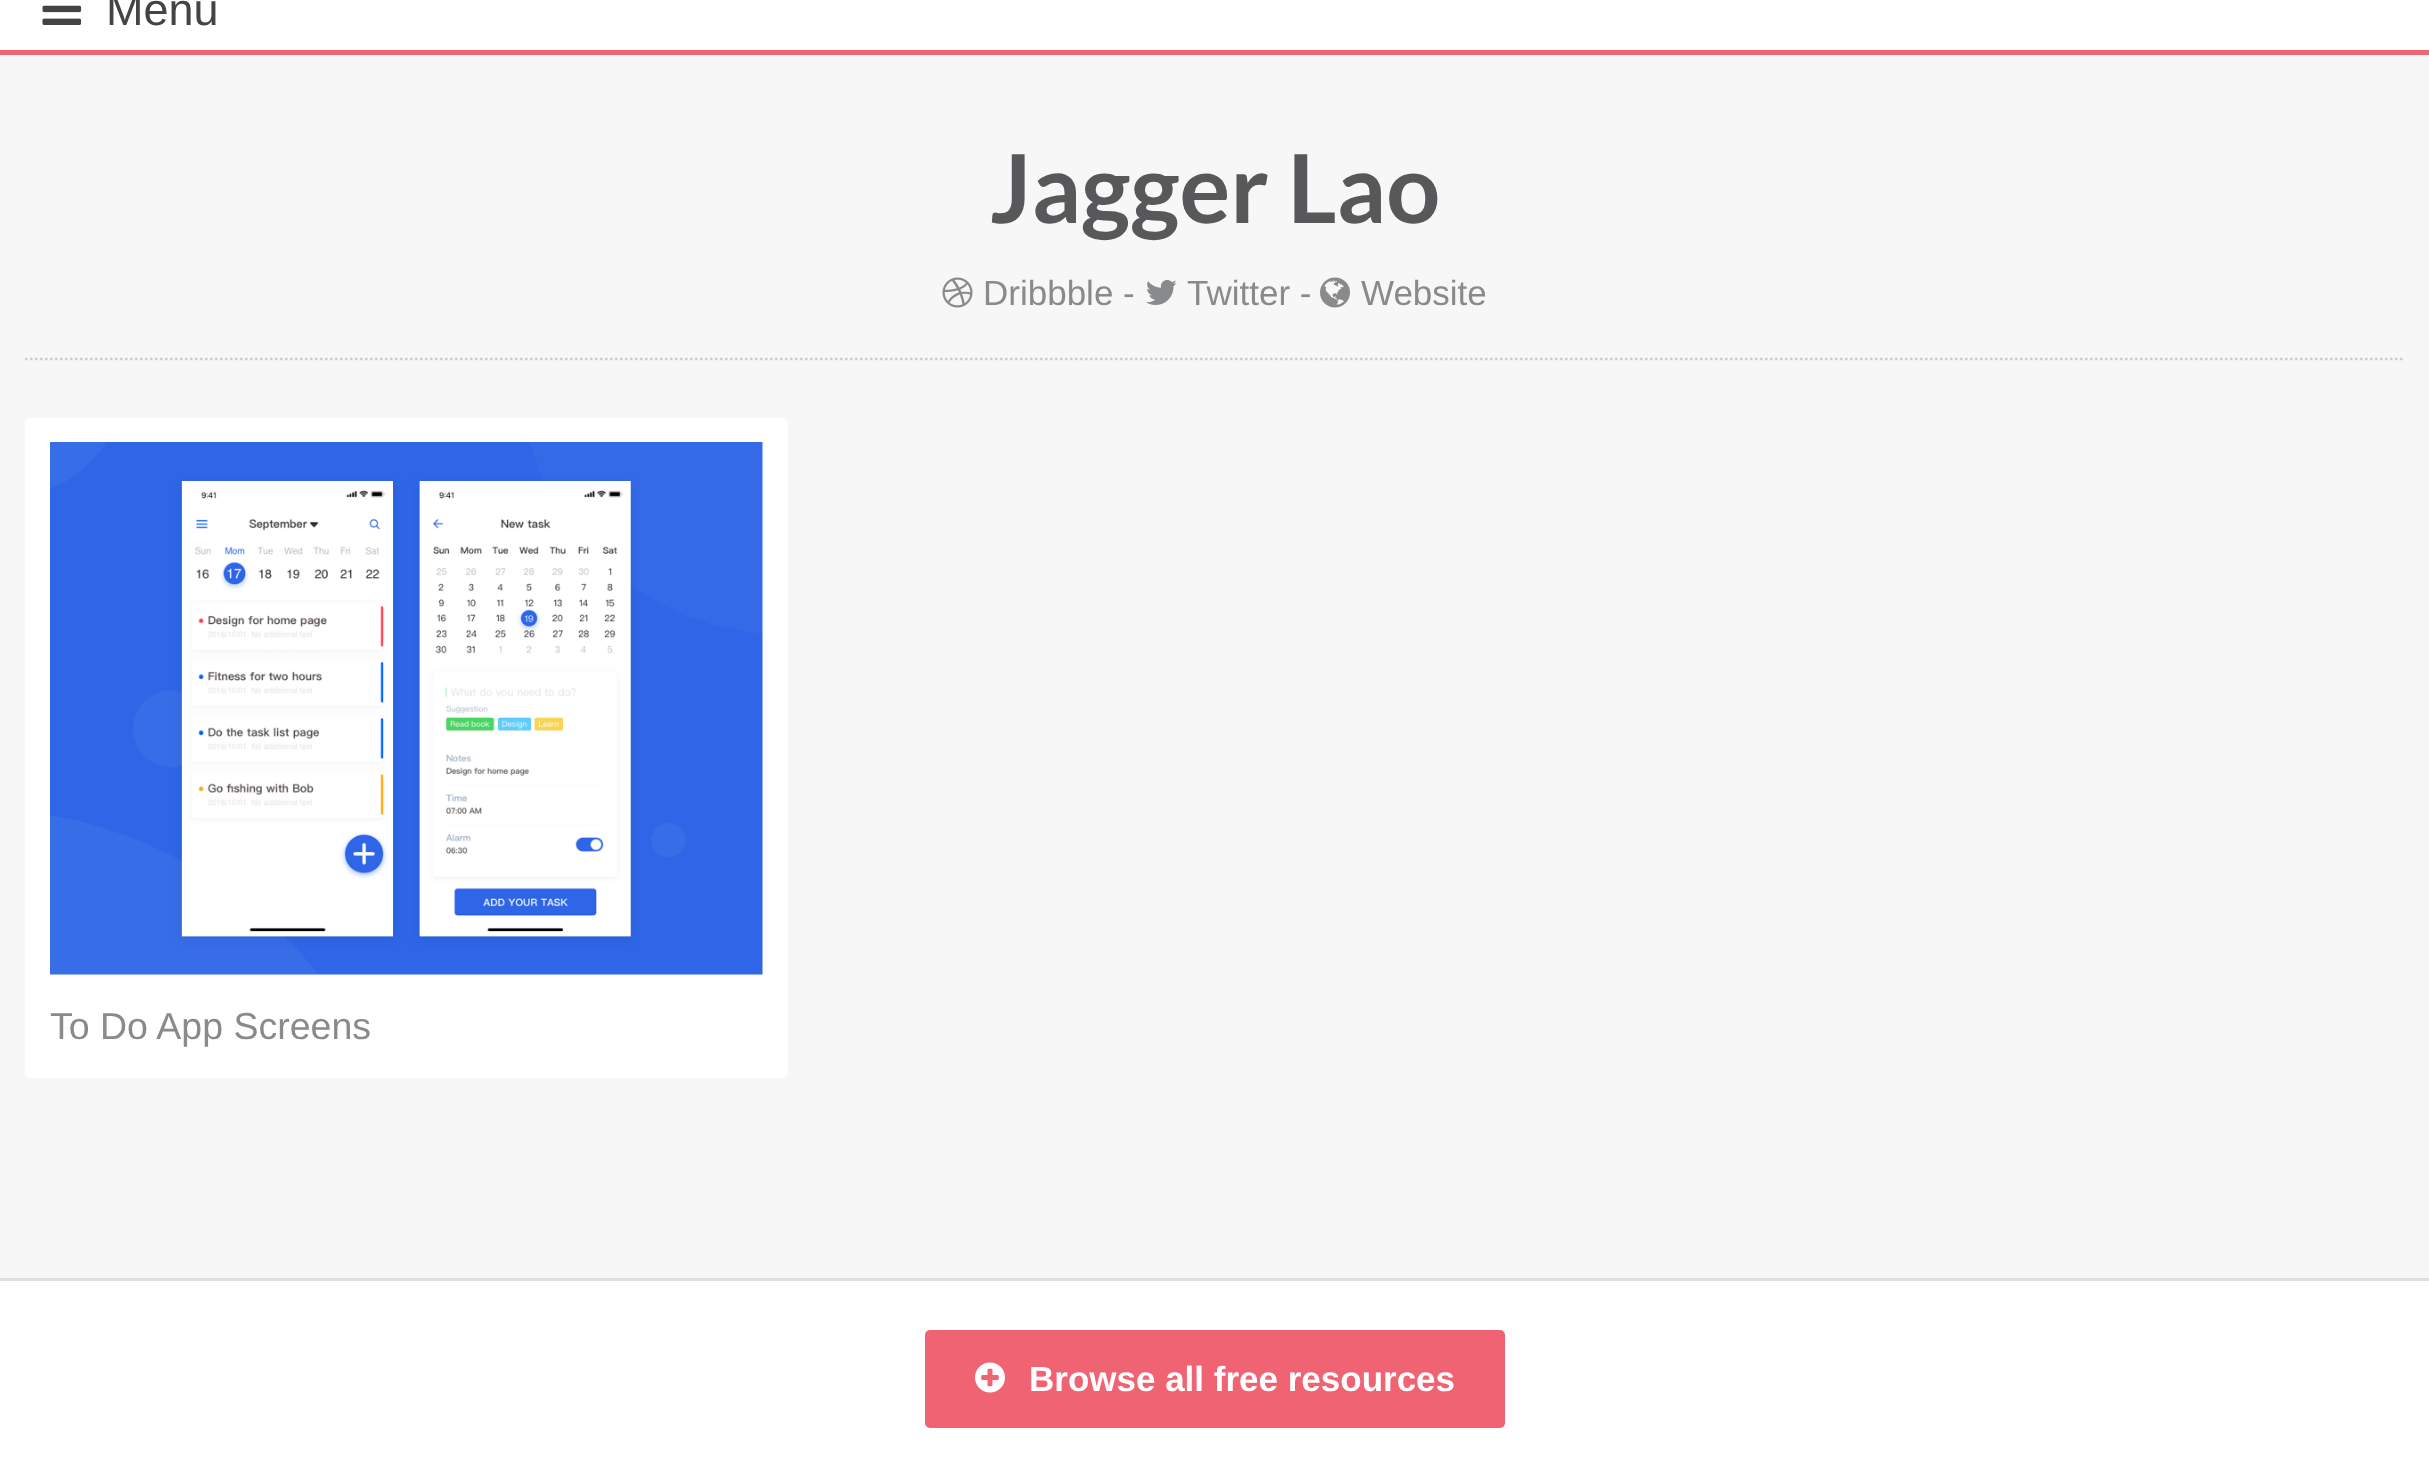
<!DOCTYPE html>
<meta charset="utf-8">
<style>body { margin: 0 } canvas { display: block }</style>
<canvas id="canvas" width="2429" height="1457"></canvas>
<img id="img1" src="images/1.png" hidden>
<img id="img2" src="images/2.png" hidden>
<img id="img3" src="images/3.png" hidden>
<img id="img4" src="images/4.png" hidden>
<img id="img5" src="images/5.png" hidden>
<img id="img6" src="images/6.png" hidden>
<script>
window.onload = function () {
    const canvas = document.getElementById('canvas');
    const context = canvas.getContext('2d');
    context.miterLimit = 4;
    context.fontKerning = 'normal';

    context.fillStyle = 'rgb(247, 247, 247)';
    context.fillRect(0, 0, 2429, 1457);
    context.fillStyle = 'rgb(255, 255, 255)';
    context.fillRect(0, 0, 2429, 50);
    context.drawImage(document.getElementById('img1'), 42, 5, 40, 20);
    context.fillStyle = 'rgb(240, 99, 115)';
    context.fillRect(0, 50, 2429, 5);
    context.beginPath();
    context.moveTo(25, 359);
    context.lineTo(2405, 359);
    context.strokeStyle = 'rgb(204, 204, 204)';
    context.lineWidth = 2.5;
    context.setLineDash([2.5, 2.5]);
    context.stroke();
    context.drawImage(document.getElementById('img2'), 942, 277, 31, 31);
    context.drawImage(document.getElementById('img3'), 1146, 280, 31, 25);
    context.drawImage(document.getElementById('img4'), 1320, 277, 30, 31);
    context.fillStyle = 'rgb(255, 255, 255)';
    context.beginPath();
    context.roundRect(25, 418, 763, 660, 5);
    context.fill();
    context.drawImage(document.getElementById('img5'), 50, 442, 713, 533);
    context.fillRect(0, 1281, 2429, 176);
    context.fillStyle = 'rgb(223, 223, 223)';
    context.fillRect(0, 1278, 2429, 3);
    context.fillStyle = 'rgb(240, 99, 115)';
    context.beginPath();
    context.roundRect(925, 1330, 580, 98, 5);
    context.fill();
    context.drawImage(document.getElementById('img6'), 975, 1362, 30, 31);
    context.font = '45px Liberation Sans';
    context.fillStyle = 'rgb(68, 68, 68)';
    context.fillText('Menu', 106, 25);
    context.font = 'bold 95px Lato';
    context.fillStyle = 'rgb(88, 88, 91)';
    context.fillText('Jagger Lao', 990, 223);
    context.font = '35px Liberation Sans';
    context.fillStyle = 'rgb(136, 138, 140)';
    context.fillText('Dribbble -', 983, 305);
    context.fillText('Twitter -', 1187, 305);
    context.fillText('Website', 1361, 305);
    context.font = '37.5px Liberation Sans';
    context.fillText('To Do App Screens', 50, 1039);
    context.font = 'bold 35px Liberation Sans';
    context.fillStyle = 'rgb(255, 255, 255)';
    context.fillText('Browse all free resources', 1029, 1391);
};
</script>
